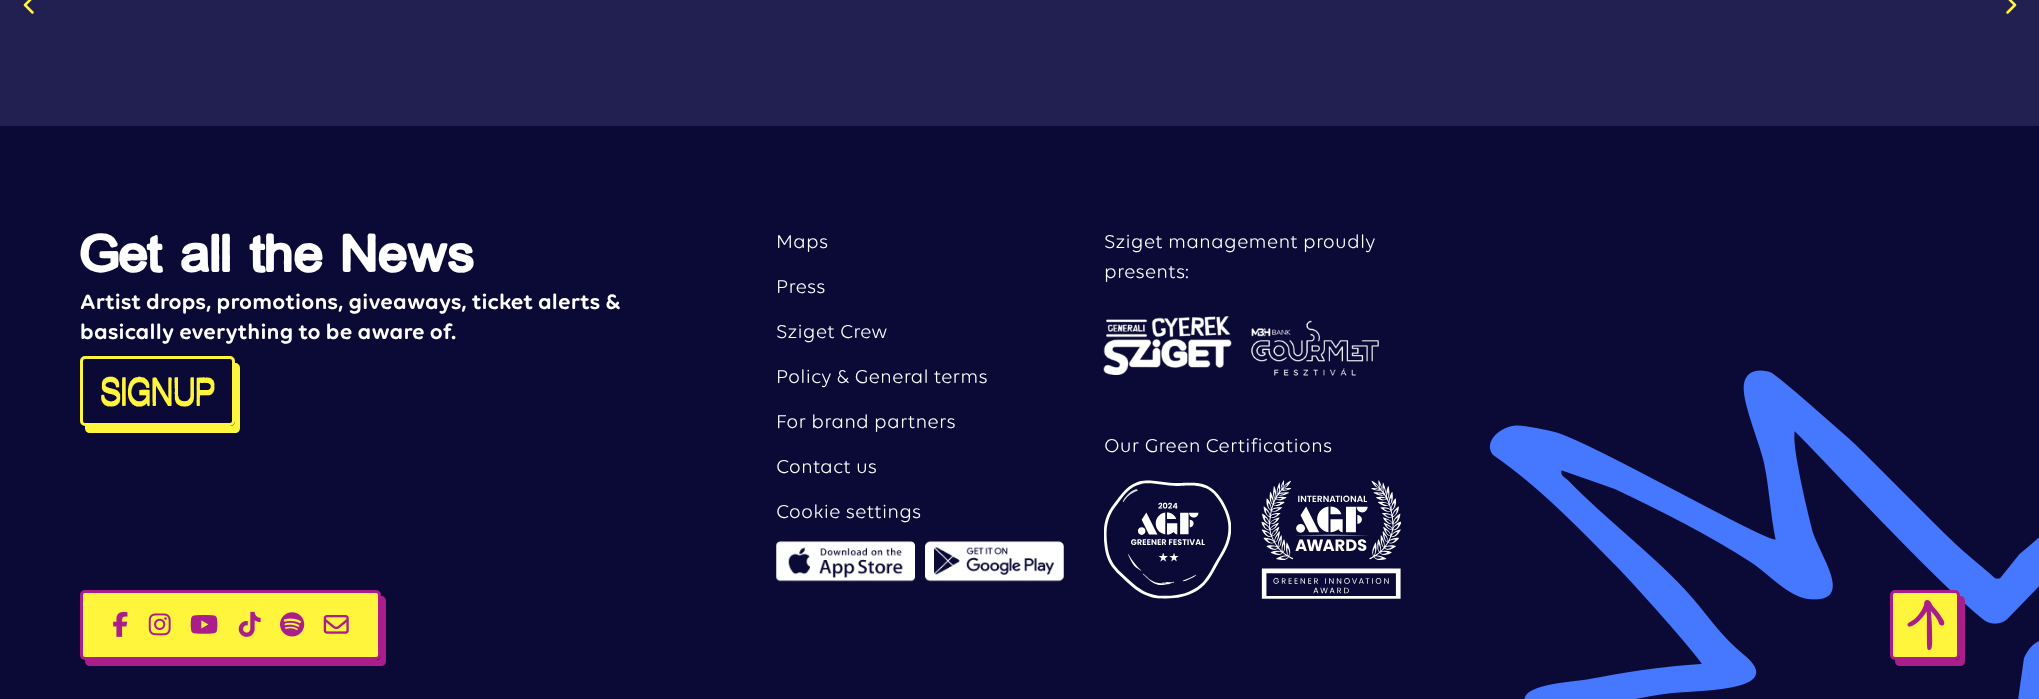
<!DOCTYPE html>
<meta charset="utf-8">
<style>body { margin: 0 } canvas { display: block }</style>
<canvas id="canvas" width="2039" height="699"></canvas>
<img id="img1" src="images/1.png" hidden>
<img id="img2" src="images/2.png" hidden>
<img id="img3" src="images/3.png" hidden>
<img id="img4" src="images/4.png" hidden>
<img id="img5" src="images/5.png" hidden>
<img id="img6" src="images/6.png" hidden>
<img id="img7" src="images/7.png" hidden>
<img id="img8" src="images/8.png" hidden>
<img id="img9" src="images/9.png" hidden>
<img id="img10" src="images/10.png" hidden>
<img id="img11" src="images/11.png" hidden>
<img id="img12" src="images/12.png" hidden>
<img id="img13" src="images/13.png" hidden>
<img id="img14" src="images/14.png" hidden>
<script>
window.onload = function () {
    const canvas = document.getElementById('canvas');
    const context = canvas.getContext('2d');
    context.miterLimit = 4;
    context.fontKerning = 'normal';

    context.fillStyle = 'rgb(34, 32, 81)';
    context.fillRect(0, 0, 2039, 699);
    context.beginPath();
    context.moveTo(32.5, 12.5);
    context.lineTo(25, 5);
    context.lineTo(32.5, -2.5);
    context.strokeStyle = 'rgb(255, 245, 60)';
    context.lineWidth = 2.5;
    context.lineCap = 'round';
    context.lineJoin = 'round';
    context.stroke();
    context.beginPath();
    context.moveTo(2007.5, -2.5);
    context.lineTo(2015, 5);
    context.lineTo(2007.5, 12.5);
    context.stroke();
    context.fillStyle = 'rgb(11, 10, 54)';
    context.fillRect(0, 126, 2039, 573);
    context.fillStyle = 'rgb(255, 245, 60)';
    context.beginPath();
    context.moveTo(85, 426);
    context.lineTo(85, 428);
    context.bezierCurveTo(85, 431, 87, 433, 90, 433);
    context.lineTo(235, 433);
    context.bezierCurveTo(238, 433, 240, 431, 240, 428);
    context.lineTo(240, 368);
    context.bezierCurveTo(240, 365, 238, 363, 235, 363);
    context.lineTo(235, 421);
    context.bezierCurveTo(235, 424, 233, 426, 230, 426);
    context.closePath();
    context.fill();
    context.beginPath();
    context.roundRect(81.5, 357.5, 152, 67, 3.5);
    context.lineWidth = 3;
    context.lineJoin = 'miter';
    context.stroke();
    context.drawImage(document.getElementById('img1'), 776, 541, 139, 41);
    context.drawImage(document.getElementById('img2'), 925, 541, 139, 41);
    context.drawImage(document.getElementById('img3'), 1103, 316, 129, 59);
    context.drawImage(document.getElementById('img4'), 1251, 320, 128, 56);
    context.drawImage(document.getElementById('img5'), 1104, 480, 127, 119);
    context.drawImage(document.getElementById('img6'), 1261, 480, 140, 119);
    context.drawImage(document.getElementById('img7'), 1489, 370, 550, 329);
    context.fillStyle = 'rgb(170, 30, 140)';
    context.beginPath();
    context.moveTo(85, 660);
    context.lineTo(85, 661);
    context.bezierCurveTo(85, 664, 87, 666, 90, 666);
    context.lineTo(381, 666);
    context.bezierCurveTo(384, 666, 386, 664, 386, 661);
    context.lineTo(386, 601);
    context.bezierCurveTo(386, 598, 384, 596, 381, 596);
    context.lineTo(381, 655);
    context.bezierCurveTo(381, 658, 379, 660, 376, 660);
    context.closePath();
    context.fill();
    context.fillStyle = 'rgb(255, 245, 60)';
    context.beginPath();
    context.roundRect(81.5, 591.5, 298, 67, 3.5);
    context.fill();
    context.strokeStyle = 'rgb(170, 30, 140)';
    context.stroke();
    context.drawImage(document.getElementById('img8'), 113, 611, 15, 26);
    context.drawImage(document.getElementById('img9'), 148, 613, 23, 23);
    context.drawImage(document.getElementById('img10'), 190, 615, 28, 19);
    context.drawImage(document.getElementById('img11'), 238, 611, 23, 26);
    context.drawImage(document.getElementById('img12'), 280, 612, 25, 25);
    context.drawImage(document.getElementById('img13'), 323, 615, 26, 19);
    context.fillStyle = 'rgb(170, 30, 140)';
    context.beginPath();
    context.moveTo(1895, 660);
    context.lineTo(1895, 661);
    context.bezierCurveTo(1895, 664, 1897, 666, 1900, 666);
    context.lineTo(1960, 666);
    context.bezierCurveTo(1963, 666, 1965, 664, 1965, 661);
    context.lineTo(1965, 601);
    context.bezierCurveTo(1965, 598, 1963, 596, 1960, 596);
    context.lineTo(1960, 655);
    context.bezierCurveTo(1960, 658, 1958, 660, 1955, 660);
    context.closePath();
    context.fill();
    context.fillStyle = 'rgb(255, 245, 60)';
    context.beginPath();
    context.roundRect(1891.5, 591.5, 67, 67, 3.5);
    context.fill();
    context.stroke();
    context.drawImage(document.getElementById('img14'), 1907, 600, 38, 50);
    context.letterSpacing = '3px';
    context.font = '60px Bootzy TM';
    context.fillStyle = 'rgb(255, 255, 255)';
    context.fillText('Get all the News', 80, 272);
    context.letterSpacing = '0.22px';
    context.font = '600 22.5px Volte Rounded';
    context.fillText('Artist drops, promotions, giveaways, ticket alerts &', 80, 309);
    context.fillText('basically everything to be aware of.', 80, 339);
    context.letterSpacing = '0px';
    context.font = '40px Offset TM';
    context.fillStyle = 'rgb(255, 245, 60)';
    context.fillText('SIGNUP', 101, 406);
    context.letterSpacing = '0.2px';
    context.font = '20px Volte Rounded';
    context.fillStyle = 'rgb(255, 255, 255)';
    context.fillText('Maps', 776, 248);
    context.fillText('Press', 776, 293);
    context.fillText('Sziget Crew', 776, 338);
    context.fillText('Policy & General terms', 776, 383);
    context.fillText('For brand partners', 776, 428);
    context.fillText('Contact us', 776, 473);
    context.fillText('Cookie settings', 776, 518);
    context.fillText('Sziget management proudly', 1104, 248);
    context.fillText('presents:', 1104, 278);
    context.fillText('Our Green Certifications', 1104, 452);
};
</script>
